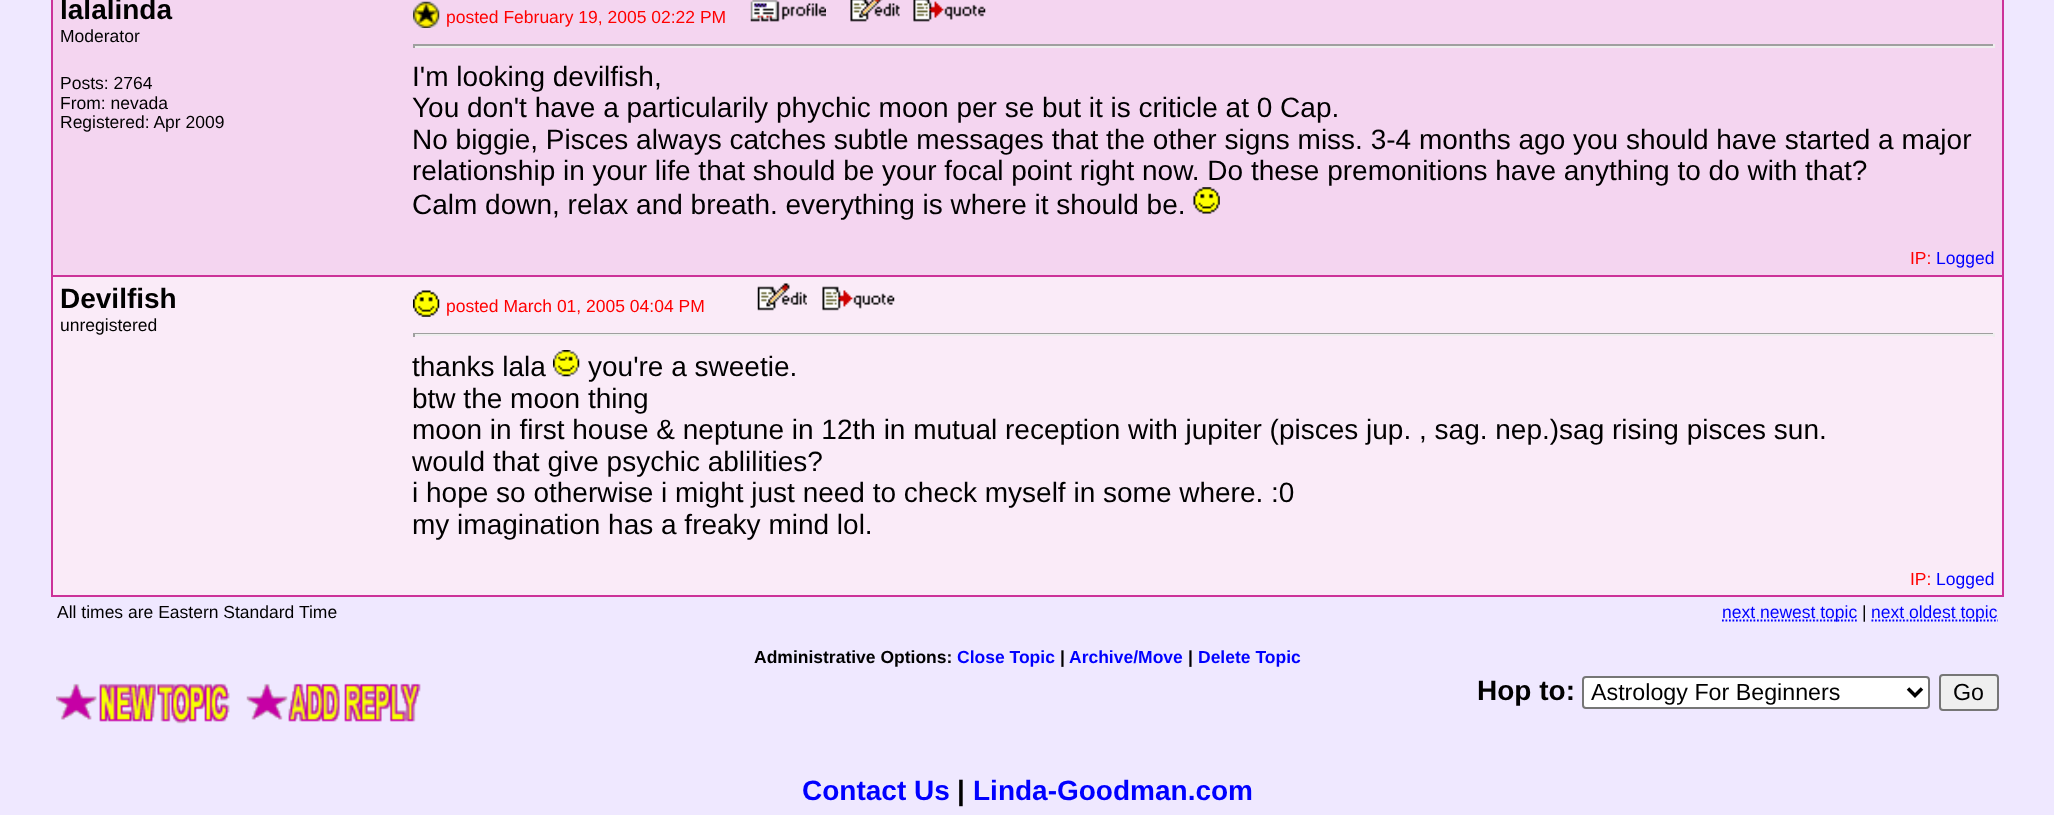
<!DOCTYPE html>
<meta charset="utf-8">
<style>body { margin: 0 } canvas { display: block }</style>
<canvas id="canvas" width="2054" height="815"></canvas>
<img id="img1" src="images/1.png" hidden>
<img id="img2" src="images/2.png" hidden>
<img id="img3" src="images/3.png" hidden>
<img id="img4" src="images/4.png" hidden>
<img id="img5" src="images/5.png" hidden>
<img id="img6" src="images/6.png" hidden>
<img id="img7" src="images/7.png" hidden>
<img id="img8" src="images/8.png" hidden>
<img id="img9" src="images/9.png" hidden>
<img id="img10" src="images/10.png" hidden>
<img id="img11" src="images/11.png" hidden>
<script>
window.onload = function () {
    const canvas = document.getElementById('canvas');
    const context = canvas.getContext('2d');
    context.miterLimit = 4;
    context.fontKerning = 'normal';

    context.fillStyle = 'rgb(239, 232, 255)';
    context.fillRect(0, 0, 2054, 815);
    context.fillStyle = 'rgb(204, 50, 153)';
    context.fillRect(51, 0, 1953, 597);
    context.fillStyle = 'rgb(244, 213, 240)';
    context.fillRect(53, 0, 1949, 275);
    context.drawImage(document.getElementById('img1'), 413, 1, 27, 27);
    context.drawImage(document.getElementById('img2'), 750, 0, 76, 22);
    context.drawImage(document.getElementById('img3'), 850, 0, 50, 22);
    context.drawImage(document.getElementById('img4'), 913, 0, 73, 22);
    context.fillStyle = 'rgb(159, 159, 159)';
    context.fillRect(413, 44, 1582, 2);
    context.fillStyle = 'rgb(238, 238, 238)';
    context.fillRect(1993, 44, 2, 4);
    context.fillRect(413, 46, 1582, 2);
    context.fillStyle = 'rgb(159, 159, 159)';
    context.fillRect(413, 44, 2, 4);
    context.drawImage(document.getElementById('img5'), 1193, 187, 27, 27);
    context.fillStyle = 'rgb(250, 235, 248)';
    context.fillRect(53, 277, 1949, 318);
    context.drawImage(document.getElementById('img6'), 413, 290, 27, 27);
    context.drawImage(document.getElementById('img7'), 757, 283, 50, 28);
    context.drawImage(document.getElementById('img8'), 822, 286, 73, 25);
    context.fillStyle = 'rgb(159, 159, 159)';
    context.fillRect(413, 333, 1582, 1);
    context.fillStyle = 'rgb(238, 238, 238)';
    context.fillRect(1993, 333, 2, 4);
    context.fillRect(413, 334, 1582, 2);
    context.fillStyle = 'rgb(159, 159, 159)';
    context.fillRect(413, 333, 2, 4);
    context.drawImage(document.getElementById('img9'), 553, 350, 27, 27);
    context.beginPath();
    context.moveTo(1722, 620.5);
    context.lineTo(1857, 620.5);
    context.strokeStyle = 'rgb(0, 0, 255)';
    context.lineWidth = 1.8;
    context.setLineDash([1.75, 1.75]);
    context.stroke();
    context.beginPath();
    context.moveTo(1871.5, 620.5);
    context.lineTo(1998, 620.5);
    context.stroke();
    context.drawImage(document.getElementById('img10'), 56, 683, 174, 41);
    context.drawImage(document.getElementById('img11'), 246, 683, 175, 39);
    context.fillStyle = 'rgb(255, 255, 255)';
    context.beginPath();
    context.roundRect(1583, 677, 346, 31, 3);
    context.fill();
    context.strokeStyle = 'rgb(118, 118, 118)';
    context.lineWidth = 2;
    context.setLineDash([]);
    context.stroke();
    context.beginPath();
    context.moveTo(1908, 688.5);
    context.lineTo(1915, 695.5);
    context.lineTo(1922, 688.5);
    context.strokeStyle = 'rgb(0, 0, 0)';
    context.lineWidth = 3.5;
    context.stroke();
    context.fillStyle = 'rgb(239, 239, 239)';
    context.beginPath();
    context.roundRect(1940, 675, 58, 35, 3);
    context.fill();
    context.strokeStyle = 'rgb(118, 118, 118)';
    context.lineWidth = 2;
    context.stroke();
    context.font = 'bold 28px Liberation Sans';
    context.fillStyle = 'rgb(0, 0, 0)';
    context.fillText('lalalinda', 60, 19);
    context.font = '17.5px Liberation Sans';
    context.fillText('Moderator', 60, 42);
    context.fillText('Posts: 2764', 60, 89);
    context.fillText('From: nevada', 60, 109);
    context.fillText('Registered: Apr 2009', 60, 128);
    context.fillStyle = 'rgb(255, 0, 0)';
    context.fillText('posted February 19, 2005 02:22 PM', 446, 23);
    context.font = '28px Liberation Sans';
    context.fillStyle = 'rgb(0, 0, 0)';
    context.fillText('I\'m looking devilfish,', 412, 86);
    context.fillText('You don\'t have a particularily phychic moon per se but it is criticle at 0 Cap.', 412, 117);
    context.fillText('No biggie, Pisces always catches subtle messages that the other signs miss. 3-4 months ago you should have started a major', 412, 149);
    context.fillText('relationship in your life that should be your focal point right now. Do these premonitions have anything to do with that?', 412, 180);
    context.fillText('Calm down, relax and breath. everything is where it should be.', 412, 214);
    context.font = '17.5px Liberation Sans';
    context.fillStyle = 'rgb(255, 0, 0)';
    context.fillText('IP:', 1910, 264);
    context.fillStyle = 'rgb(0, 0, 255)';
    context.fillText('Logged', 1936, 264);
    context.font = 'bold 28px Liberation Sans';
    context.fillStyle = 'rgb(0, 0, 0)';
    context.fillText('Devilfish', 60, 308);
    context.font = '17.5px Liberation Sans';
    context.fillText('unregistered', 60, 331);
    context.fillStyle = 'rgb(255, 0, 0)';
    context.fillText('posted March 01, 2005 04:04 PM', 446, 312);
    context.font = '28px Liberation Sans';
    context.fillStyle = 'rgb(0, 0, 0)';
    context.fillText('thanks lala', 412, 376);
    context.fillText('you\'re a sweetie.', 588, 376);
    context.fillText('btw the moon thing', 412, 408);
    context.fillText('moon in first house & neptune in 12th in mutual reception with jupiter (pisces jup. , sag. nep.)sag rising pisces sun.', 412, 439);
    context.fillText('would that give psychic ablilities?', 412, 471);
    context.fillText('i hope so otherwise i might just need to check myself in some where. :0', 412, 502);
    context.fillText('my imagination has a freaky mind lol.', 412, 534);
    context.font = '17.5px Liberation Sans';
    context.fillStyle = 'rgb(255, 0, 0)';
    context.fillText('IP:', 1910, 585);
    context.fillStyle = 'rgb(0, 0, 255)';
    context.fillText('Logged', 1936, 585);
    context.fillStyle = 'rgb(0, 0, 0)';
    context.fillText('All times are Eastern Standard Time', 57, 618);
    context.fillStyle = 'rgb(0, 0, 255)';
    context.fillText('next newest topic', 1722, 618);
    context.fillStyle = 'rgb(0, 0, 0)';
    context.fillText('|', 1862, 618);
    context.fillStyle = 'rgb(0, 0, 255)';
    context.fillText('next oldest topic', 1871, 618);
    context.font = 'bold 17.5px Liberation Sans';
    context.fillStyle = 'rgb(0, 0, 0)';
    context.fillText('Administrative Options:', 754, 663);
    context.fillStyle = 'rgb(0, 0, 255)';
    context.fillText('Close Topic', 957, 663);
    context.fillStyle = 'rgb(0, 0, 0)';
    context.fillText('|', 1060, 663);
    context.fillStyle = 'rgb(0, 0, 255)';
    context.fillText('Archive/Move', 1069, 663);
    context.fillStyle = 'rgb(0, 0, 0)';
    context.fillText('|', 1188, 663);
    context.fillStyle = 'rgb(0, 0, 255)';
    context.fillText('Delete Topic', 1198, 663);
    context.font = 'bold 28px Liberation Sans';
    context.fillStyle = 'rgb(0, 0, 0)';
    context.fillText('Hop to:', 1477, 700);
    context.font = '23.25px Liberation Sans';
    context.fillText('Astrology For Beginners', 1591, 700);
    context.fillText('Go', 1953, 700);
    context.font = 'bold 28px Liberation Sans';
    context.fillStyle = 'rgb(0, 0, 255)';
    context.fillText('Contact Us', 802, 800);
    context.fillStyle = 'rgb(0, 0, 0)';
    context.fillText('|', 957, 800);
    context.fillStyle = 'rgb(0, 0, 255)';
    context.fillText('Linda-Goodman.com', 973, 800);
};
</script>
